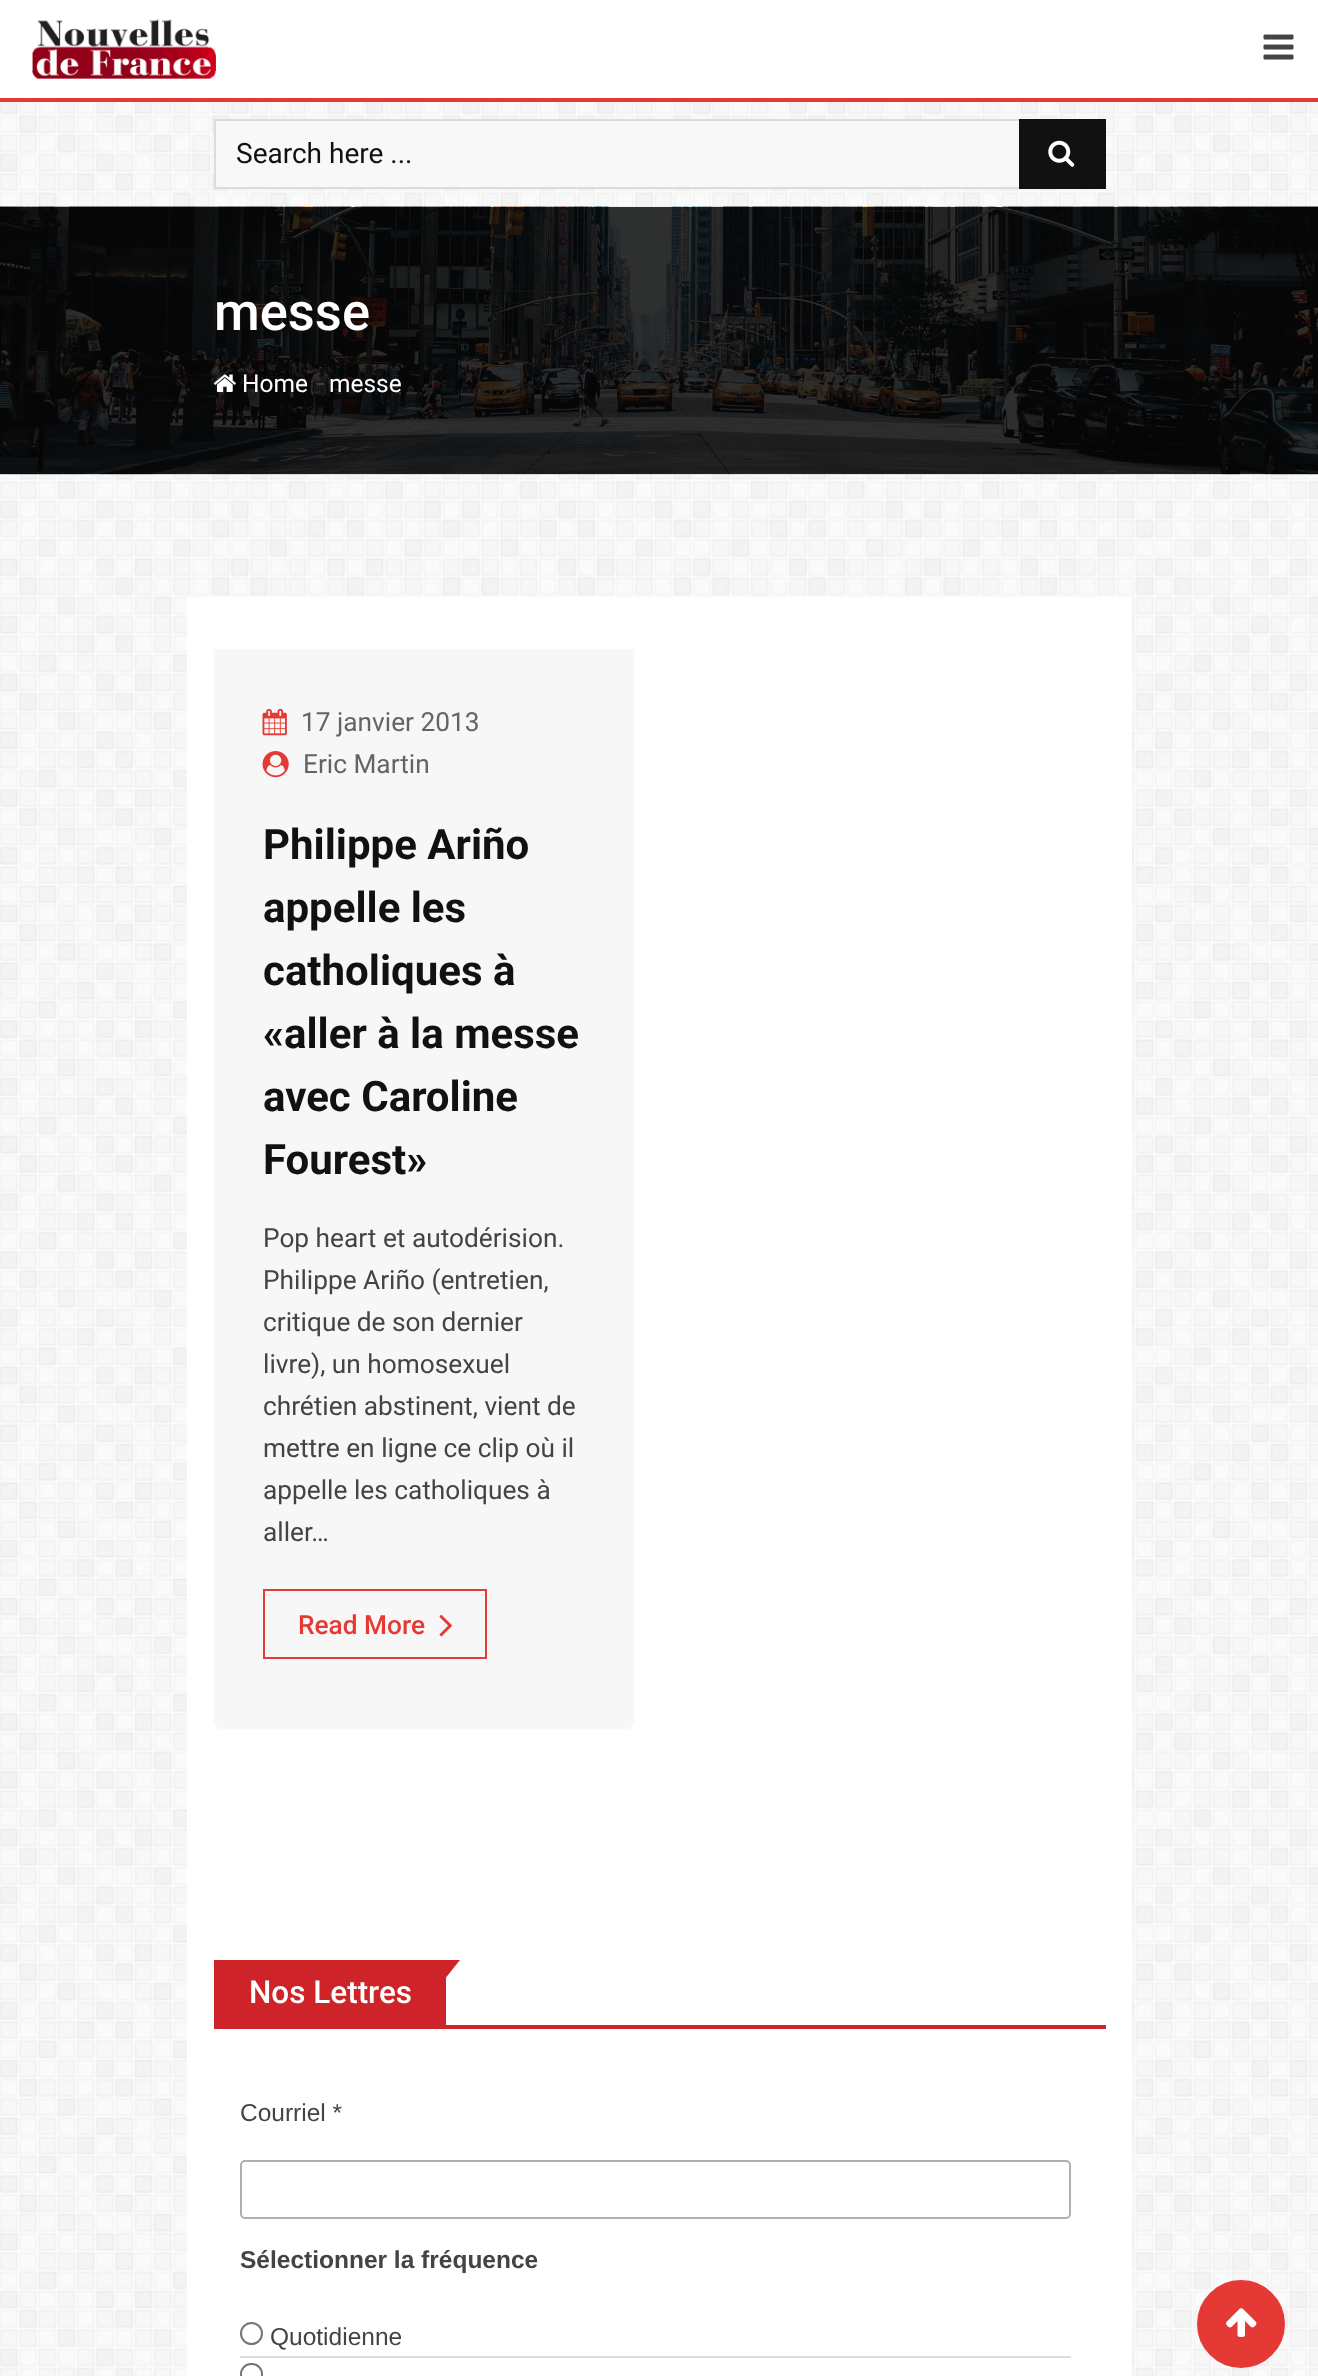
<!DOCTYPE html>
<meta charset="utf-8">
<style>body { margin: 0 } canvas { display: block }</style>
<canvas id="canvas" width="1318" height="2376"></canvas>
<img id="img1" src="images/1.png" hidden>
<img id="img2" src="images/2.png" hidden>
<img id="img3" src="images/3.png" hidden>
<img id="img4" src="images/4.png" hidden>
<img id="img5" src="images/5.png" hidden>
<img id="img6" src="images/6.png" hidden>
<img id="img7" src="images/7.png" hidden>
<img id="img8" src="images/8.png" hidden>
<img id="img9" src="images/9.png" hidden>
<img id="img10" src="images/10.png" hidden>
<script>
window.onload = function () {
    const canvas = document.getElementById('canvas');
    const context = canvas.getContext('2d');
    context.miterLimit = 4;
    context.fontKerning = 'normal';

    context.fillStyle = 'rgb(255, 255, 255)';
    context.fillRect(0, 0, 1318, 2376);
    context.drawImage(document.getElementById('img1'), 0, 102, 1318, 2274);
    context.fillStyle = 'rgb(229, 57, 53)';
    context.fillRect(0, 98, 1318, 4);
    context.drawImage(document.getElementById('img2'), 32, 19, 184, 60);
    context.drawImage(document.getElementById('img3'), 1263, 34, 31, 26);
    context.fillStyle = 'rgb(248, 248, 248)';
    context.fillRect(216, 121, 803, 66);
    context.strokeStyle = 'rgb(220, 220, 220)';
    context.lineWidth = 2;
    context.strokeRect(215, 120, 890, 68);
    context.fillStyle = 'rgb(17, 17, 17)';
    context.fillRect(1019, 119, 87, 70);
    context.drawImage(document.getElementById('img4'), 1048, 140, 27, 27);
    context.drawImage(document.getElementById('img5'), 0, 206, 1318, 269);
    context.drawImage(document.getElementById('img6'), 213, 374, 23, 18);
    context.fillStyle = 'rgb(255, 255, 255)';
    context.fillRect(187, 597, 945, 1779);
    context.fillStyle = 'rgb(247, 247, 247)';
    context.beginPath();
    context.roundRect(214, 649, 420, 1080, [0, 0, 7, 7]);
    context.fill();
    context.drawImage(document.getElementById('img7'), 262, 709, 25, 27);
    context.drawImage(document.getElementById('img8'), 262, 751, 27, 27);
    context.strokeStyle = 'rgb(229, 57, 53)';
    context.strokeRect(264, 1590, 222, 68);
    context.drawImage(document.getElementById('img9'), 439, 1615, 13, 22);
    context.fillStyle = 'rgb(206, 36, 41)';
    context.fillRect(214, 2025, 892, 4);
    context.fillRect(214, 1960, 232, 65);
    context.beginPath();
    context.moveTo(446, 1960);
    context.lineTo(460, 1960);
    context.lineTo(446, 1977.5);
    context.closePath();
    context.fill();
    context.beginPath();
    context.roundRect(241, 2161, 829, 57, 4);
    context.strokeStyle = 'rgb(171, 176, 178)';
    context.stroke();
    context.fillStyle = 'rgb(220, 220, 220)';
    context.fillRect(240, 2356, 831, 2);
    context.beginPath();
    context.arc(251.5, 2333.5, 10.5, 0, 2 * Math.PI);
    context.strokeStyle = 'rgb(118, 118, 118)';
    context.stroke();
    context.beginPath();
    context.roundRect(241, 2364, 21, 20, 10);
    context.stroke();
    context.fillStyle = 'rgb(229, 57, 53)';
    context.beginPath();
    context.arc(1241, 2324, 42, 0, 2 * Math.PI);
    context.fill();
    context.strokeStyle = 'rgb(229, 57, 53)';
    context.lineWidth = 4;
    context.stroke();
    context.drawImage(document.getElementById('img10'), 1226, 2308, 31, 29);
    context.font = '28px Roboto';
    context.fillStyle = 'rgb(17, 17, 17)';
    context.fillText('Search here ...', 236, 163);
    context.font = '500 52.5px Roboto';
    context.fillStyle = 'rgb(255, 255, 255)';
    context.fillText('messe', 214, 330);
    context.font = '24.5px Roboto';
    context.fillText('Home', 242, 392);
    context.font = 'italic 26.25px Roboto';
    context.fillStyle = 'rgb(68, 68, 68)';
    context.fillText('-', 315, 392);
    context.font = '24.5px Roboto';
    context.fillStyle = 'rgb(255, 255, 255)';
    context.fillText('messe', 329, 392);
    context.font = '26.25px Roboto';
    context.fillStyle = 'rgb(100, 100, 100)';
    context.fillText('17 janvier 2013', 301, 731);
    context.fillText('Eric Martin', 303, 773);
    context.font = 'bold 42px Roboto';
    context.fillStyle = 'rgb(17, 17, 17)';
    context.fillText('Philippe Ariño', 263, 859);
    context.fillText('appelle les', 263, 922);
    context.fillText('catholiques à', 263, 985);
    context.fillText('«aller à la messe', 263, 1048);
    context.fillText('avec Caroline', 263, 1111);
    context.fillText('Fourest»', 263, 1174);
    context.font = '26.25px Roboto';
    context.fillStyle = 'rgb(68, 68, 68)';
    context.fillText('Pop heart et autodérision.', 263, 1247);
    context.fillText('Philippe Ariño (entretien,', 263, 1289);
    context.fillText('critique de son dernier', 263, 1331);
    context.fillText('livre), un homosexuel', 263, 1373);
    context.fillText('chrétien abstinent, vient de', 263, 1415);
    context.fillText('mettre en ligne ce clip où il', 263, 1457);
    context.fillText('appelle les catholiques à', 263, 1499);
    context.fillText('aller…', 263, 1541);
    context.font = '500 26.25px Roboto';
    context.fillStyle = 'rgb(229, 57, 53)';
    context.fillText('Read More', 298, 1634);
    context.font = '500 31.5px Roboto';
    context.fillStyle = 'rgb(255, 255, 255)';
    context.fillText('Nos Lettres', 249, 2003);
    context.font = '24.5px Liberation Sans';
    context.fillStyle = 'rgb(68, 68, 68)';
    context.fillText('Courriel *', 240, 2121);
    context.font = 'bold 24.5px Liberation Sans';
    context.fillText('Sélectionner la fréquence', 240, 2268);
    context.font = '24.5px Liberation Sans';
    context.fillText('Quotidienne', 270, 2345);
};
</script>
